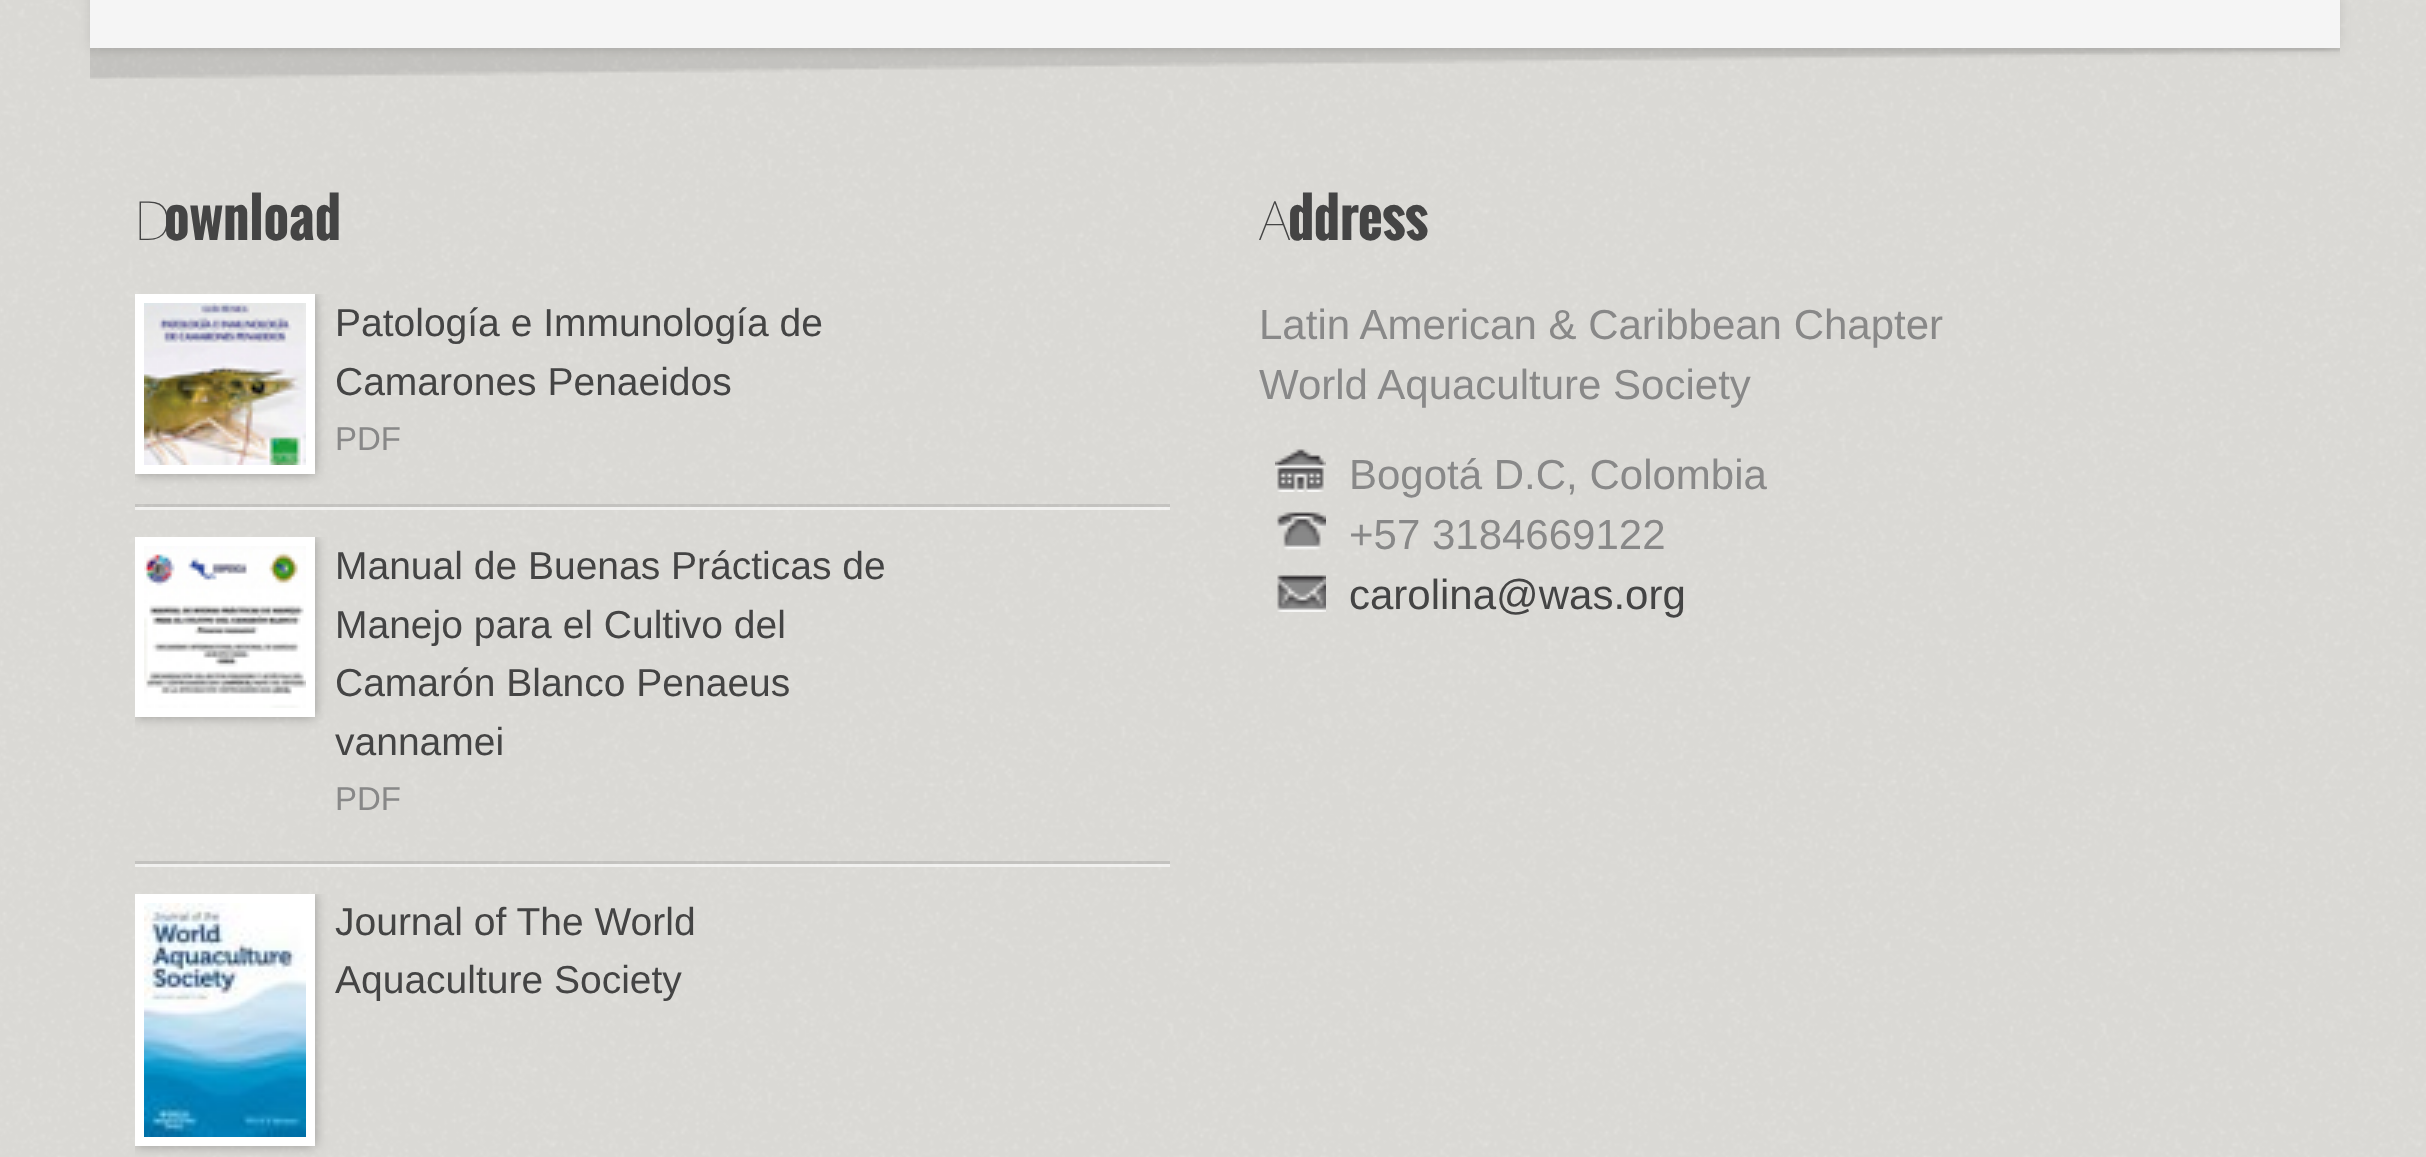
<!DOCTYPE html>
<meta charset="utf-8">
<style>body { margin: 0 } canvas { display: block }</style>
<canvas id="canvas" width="2426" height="1157"></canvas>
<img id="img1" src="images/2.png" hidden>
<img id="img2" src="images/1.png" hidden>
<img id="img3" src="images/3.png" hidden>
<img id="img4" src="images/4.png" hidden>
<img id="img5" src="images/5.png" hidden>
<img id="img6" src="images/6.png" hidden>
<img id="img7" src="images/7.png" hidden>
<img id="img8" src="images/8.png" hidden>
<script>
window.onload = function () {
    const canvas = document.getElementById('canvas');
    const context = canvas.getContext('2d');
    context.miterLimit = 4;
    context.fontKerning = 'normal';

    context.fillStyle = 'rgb(230, 229, 225)';
    context.fillRect(0, 0, 2426, 1157);
    context.drawImage(document.getElementById('img1'), 0, 0, 2426, 1157);
    context.fillStyle = 'rgba(0, 0, 0, 0.1)';
    context.filter = 'blur(6px)';
    context.beginPath();
    context.rect(90, -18, 2250, 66);
    context.fill();
    context.filter = 'none';
    context.fillStyle = 'rgb(245, 245, 245)';
    context.fillRect(90, 0, 2250, 48);
    context.drawImage(document.getElementById('img2'), 90, 48, 2250, 31);
    context.fillStyle = 'rgba(255, 255, 255, 0.6)';
    context.fillRect(135, 507, 1035, 3);
    context.fillStyle = 'rgba(0, 0, 0, 0.1)';
    context.fillRect(135, 504, 1035, 3);
    context.save();
    context.beginPath();
    context.rect(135, 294, 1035, 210);
    context.clip();
    context.fillStyle = 'rgba(0, 0, 0, 0.3)';
    context.filter = 'blur(6px)';
    context.beginPath();
    context.rect(135, 294, 180, 180);
    context.fill();
    context.filter = 'none';
    context.restore();
    context.fillStyle = 'rgb(255, 255, 255)';
    context.fillRect(135, 294, 180, 180);
    context.drawImage(document.getElementById('img3'), 144, 303, 162, 162);
    context.fillStyle = 'rgba(255, 255, 255, 0.6)';
    context.fillRect(135, 864, 1035, 3);
    context.fillStyle = 'rgba(0, 0, 0, 0.1)';
    context.fillRect(135, 861, 1035, 3);
    context.save();
    context.beginPath();
    context.rect(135, 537, 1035, 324);
    context.clip();
    context.fillStyle = 'rgba(0, 0, 0, 0.3)';
    context.filter = 'blur(6px)';
    context.beginPath();
    context.rect(135, 537, 180, 180);
    context.fill();
    context.filter = 'none';
    context.restore();
    context.fillStyle = 'rgb(255, 255, 255)';
    context.fillRect(135, 537, 180, 180);
    context.drawImage(document.getElementById('img4'), 144, 546, 162, 162);
    context.save();
    context.beginPath();
    context.rect(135, 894, 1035, 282);
    context.clip();
    context.fillStyle = 'rgba(0, 0, 0, 0.3)';
    context.filter = 'blur(6px)';
    context.beginPath();
    context.rect(135, 894, 180, 252);
    context.fill();
    context.filter = 'none';
    context.restore();
    context.fillRect(135, 894, 180, 252);
    context.drawImage(document.getElementById('img5'), 144, 903, 162, 234);
    context.drawImage(document.getElementById('img6'), 1275, 449, 51, 43);
    context.drawImage(document.getElementById('img7'), 1275, 512, 51, 38);
    context.drawImage(document.getElementById('img8'), 1277, 575, 49, 37);
    context.font = '100 54px Noto Sans';
    context.fillStyle = 'rgb(68, 68, 68)';
    context.fillText('D', 134, 240);
    context.font = 'bold 54px Oswald';
    context.fillText('ownload', 164, 240);
    context.font = '39px Liberation Sans';
    context.fillText('Patología e Immunología de', 335, 336);
    context.fillText('Camarones Penaeidos', 335, 395);
    context.font = '33px Liberation Sans';
    context.fillStyle = 'rgb(136, 136, 136)';
    context.fillText('PDF', 335, 450);
    context.font = '39px Liberation Sans';
    context.fillStyle = 'rgb(68, 68, 68)';
    context.fillText('Manual de Buenas Prácticas de', 335, 579);
    context.fillText('Manejo para el Cultivo del', 335, 638);
    context.fillText('Camarón Blanco Penaeus', 335, 696);
    context.fillText('vannamei', 335, 755);
    context.font = '33px Liberation Sans';
    context.fillStyle = 'rgb(136, 136, 136)';
    context.fillText('PDF', 335, 810);
    context.font = '39px Liberation Sans';
    context.fillStyle = 'rgb(68, 68, 68)';
    context.fillText('Journal of The World', 335, 935);
    context.fillText('Aquaculture Society', 335, 993);
    context.font = '100 54px Noto Sans';
    context.fillText('A', 1259, 240);
    context.font = 'bold 54px Oswald';
    context.fillText('ddress', 1288, 240);
    context.font = '42px Liberation Sans';
    context.fillStyle = 'rgb(136, 136, 136)';
    context.fillText('Latin American & Caribbean Chapter', 1259, 339);
    context.fillText('World Aquaculture Society', 1259, 399);
    context.fillText('Bogotá D.C, Colombia', 1349, 489);
    context.fillText('+57 3184669122', 1349, 549);
    context.fillStyle = 'rgb(68, 68, 68)';
    context.fillText('carolina@was.org', 1349, 609);
};
</script>
